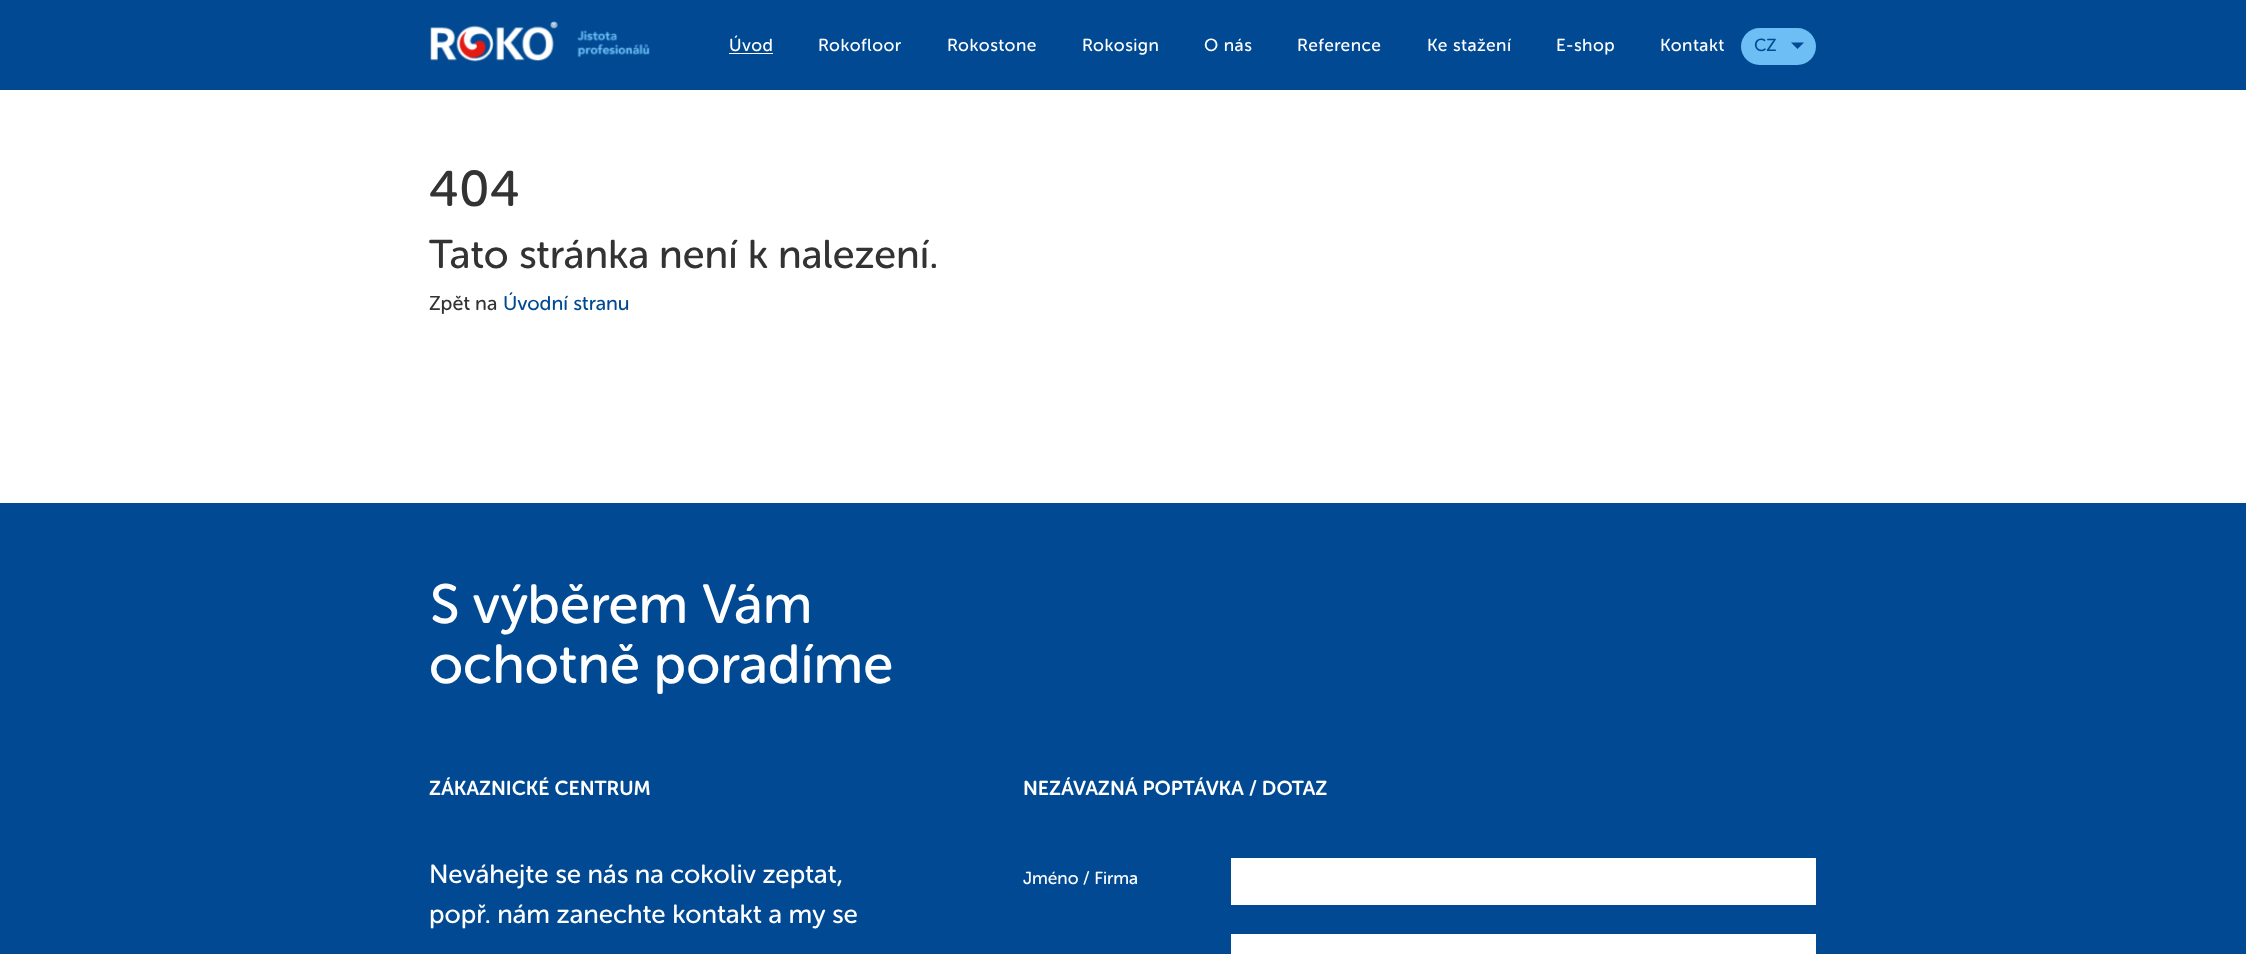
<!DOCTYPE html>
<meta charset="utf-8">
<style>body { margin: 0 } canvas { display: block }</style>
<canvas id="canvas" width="2246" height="954"></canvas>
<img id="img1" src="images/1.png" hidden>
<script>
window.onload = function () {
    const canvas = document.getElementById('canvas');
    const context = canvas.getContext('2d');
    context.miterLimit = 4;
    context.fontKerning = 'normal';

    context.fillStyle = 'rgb(255, 255, 255)';
    context.fillRect(0, 0, 2246, 954);
    context.fillStyle = 'rgb(1, 74, 147)';
    context.fillRect(0, 0, 2246, 90);
    context.drawImage(document.getElementById('img1'), 430, 21, 220, 41);
    context.fillStyle = 'rgb(255, 255, 255)';
    context.fillRect(729, 53, 44, 1);
    context.fillStyle = 'rgb(108, 190, 245)';
    context.beginPath();
    context.roundRect(1741, 28, 75, 37, 18.5);
    context.fill();
    context.fillStyle = 'rgb(1, 74, 147)';
    context.beginPath();
    context.moveTo(1791, 42.5);
    context.lineTo(1804, 42.5);
    context.lineTo(1797.5, 49);
    context.closePath();
    context.fill();
    context.fillRect(0, 503, 2246, 451);
    context.fillStyle = 'rgb(255, 255, 255)';
    context.fillRect(1231, 858, 585, 47);
    context.fillRect(1231, 934, 585, 20);
    context.letterSpacing = '0.5px';
    context.font = '17.5px "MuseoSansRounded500"';
    context.fillText('Úvod', 729, 51);
    context.fillText('Rokofloor', 818, 51);
    context.fillText('Rokostone', 947, 51);
    context.fillText('Rokosign', 1082, 51);
    context.fillText('O nás', 1204, 51);
    context.fillText('Reference', 1297, 51);
    context.fillText('Ke stažení', 1427, 51);
    context.fillText('E-shop', 1556, 51);
    context.fillText('Kontakt', 1660, 51);
    context.letterSpacing = '0px';
    context.fillStyle = 'rgb(1, 74, 147)';
    context.fillText('CZ', 1754, 51);
    context.font = '50px "MuseoSansRounded500"';
    context.fillStyle = 'rgb(51, 51, 51)';
    context.fillText('404', 429, 206);
    context.font = '40px "MuseoSansRounded500"';
    context.fillText('Tato stránka není k nalezení.', 429, 268);
    context.font = '20px "MuseoSansRounded500"';
    context.fillText('Zpět na', 429, 310);
    context.fillStyle = 'rgb(1, 74, 147)';
    context.fillText('Úvodní stranu', 503, 310);
    context.font = '55px "MuseoSansRounded500"';
    context.fillStyle = 'rgb(255, 255, 255)';
    context.fillText('S výběrem Vám', 429, 623);
    context.fillText('ochotně poradíme', 429, 683);
    context.font = '20px "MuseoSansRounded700"';
    context.fillText('ZÁKAZNICKÉ CENTRUM', 429, 795);
    context.font = '26.25px "MuseoSansRounded500"';
    context.fillText('Neváhejte se nás na cokoliv zeptat,', 429, 883);
    context.fillText('popř. nám zanechte kontakt a my se', 429, 923);
    context.font = '20px "MuseoSansRounded700"';
    context.fillText('NEZÁVAZNÁ POPTÁVKA / DOTAZ', 1023, 795);
    context.font = '17.5px "MuseoSansRounded500"';
    context.fillText('Jméno / Firma', 1023, 884);
};
</script>
